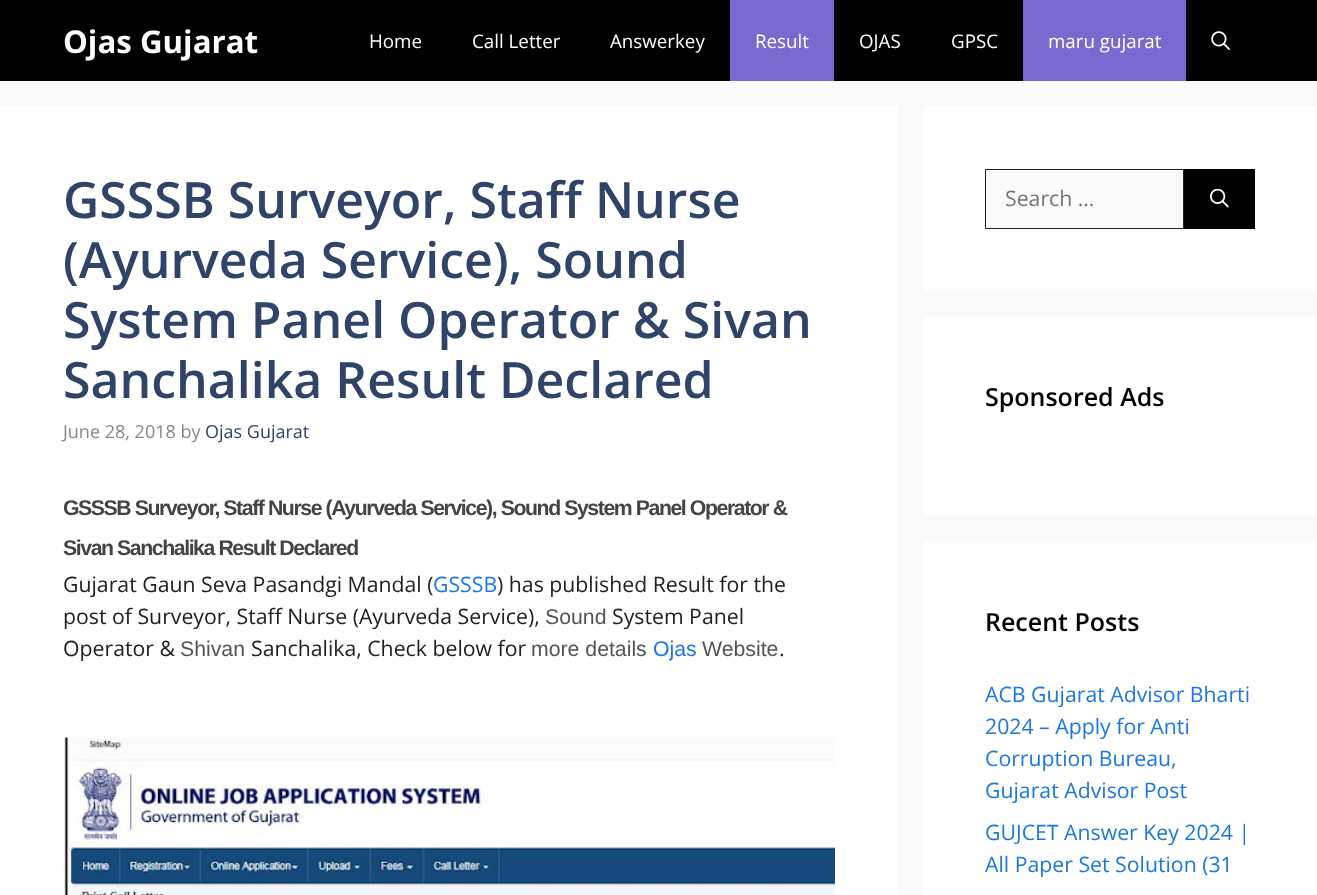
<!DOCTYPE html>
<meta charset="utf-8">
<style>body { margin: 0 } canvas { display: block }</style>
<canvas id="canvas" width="1317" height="895"></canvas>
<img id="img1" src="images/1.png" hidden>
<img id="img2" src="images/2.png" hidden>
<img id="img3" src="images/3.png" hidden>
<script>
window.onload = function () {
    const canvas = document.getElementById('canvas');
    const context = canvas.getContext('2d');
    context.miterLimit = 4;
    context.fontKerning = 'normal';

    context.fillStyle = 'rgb(250, 250, 250)';
    context.fillRect(0, 0, 1317, 895);
    context.fillStyle = 'rgb(0, 0, 0)';
    context.fillRect(0, 0, 1317, 81);
    context.fillStyle = 'rgb(124, 105, 207)';
    context.fillRect(730, 0, 104, 81);
    context.fillRect(1023, 0, 163, 81);
    context.drawImage(document.getElementById('img1'), 1211, 31, 19, 19);
    context.fillStyle = 'rgb(255, 255, 255)';
    context.fillRect(0, 106, 898, 789);
    context.drawImage(document.getElementById('img2'), 62, 737, 773, 158);
    context.fillRect(923, 106, 394, 185);
    context.fillStyle = 'rgb(250, 250, 250)';
    context.beginPath();
    context.rect(985.5, 169.5, 198, 59);
    context.fill();
    context.strokeStyle = 'rgb(33, 33, 33)';
    context.stroke();
    context.fillStyle = 'rgb(0, 0, 0)';
    context.fillRect(1184, 169, 71, 60);
    context.drawImage(document.getElementById('img3'), 1210, 189, 19, 19);
    context.fillStyle = 'rgb(255, 255, 255)';
    context.fillRect(923, 316, 394, 200);
    context.fillRect(923, 541, 394, 354);
    context.font = 'bold 31.25px Open Sans';
    context.fillText('Ojas Gujarat', 63, 53);
    context.font = '18.75px Open Sans';
    context.fillText('Home', 369, 48);
    context.fillText('Call Letter', 472, 48);
    context.fillText('Answerkey', 610, 48);
    context.fillText('Result', 755, 48);
    context.fillText('OJAS', 859, 48);
    context.fillText('GPSC', 951, 48);
    context.fillText('maru gujarat', 1048, 48);
    context.font = '600 50px Open Sans';
    context.fillStyle = 'rgb(47, 68, 104)';
    context.fillText('GSSSB Surveyor, Staff Nurse', 63, 218);
    context.fillText('(Ayurveda Service), Sound', 63, 278);
    context.fillText('System Panel Operator & Sivan', 63, 338);
    context.fillText('Sanchalika Result Declared', 63, 398);
    context.font = '18px Open Sans';
    context.fillStyle = 'rgb(135, 135, 135)';
    context.fillText('June 28, 2018 by', 63, 438);
    context.fillStyle = 'rgb(47, 68, 104)';
    context.fillText('Ojas Gujarat', 205, 438);
    context.letterSpacing = '-1.42px';
    context.font = 'bold 21.25px Liberation Sans';
    context.fillStyle = 'rgb(68, 68, 68)';
    context.fillText('GSSSB Surveyor, Staff Nurse (Ayurveda Service), Sound System Panel Operator &', 63, 515);
    context.fillText('Sivan Sanchalika Result Declared', 63, 555);
    context.letterSpacing = '0px';
    context.font = '21.25px Open Sans';
    context.fillStyle = 'rgb(33, 33, 33)';
    context.fillText('Gujarat Gaun Seva Pasandgi Mandal (', 63, 592);
    context.fillStyle = 'rgb(27, 120, 226)';
    context.fillText('GSSSB', 433, 592);
    context.fillStyle = 'rgb(33, 33, 33)';
    context.fillText(') has published Result for the', 497, 592);
    context.fillText('post of Surveyor, Staff Nurse (Ayurveda Service),', 63, 624);
    context.font = '21.25px Liberation Sans';
    context.fillStyle = 'rgb(85, 85, 85)';
    context.fillText('Sound', 545, 624);
    context.font = '21.25px Open Sans';
    context.fillStyle = 'rgb(33, 33, 33)';
    context.fillText('System Panel', 612, 624);
    context.fillText('Operator &', 63, 656);
    context.font = '21.25px Liberation Sans';
    context.fillStyle = 'rgb(85, 85, 85)';
    context.fillText('Shivan', 180, 656);
    context.font = '21.25px Open Sans';
    context.fillStyle = 'rgb(33, 33, 33)';
    context.fillText('Sanchalika, Check below for', 251, 656);
    context.font = '21.25px Liberation Sans';
    context.fillStyle = 'rgb(85, 85, 85)';
    context.fillText('more details', 531, 656);
    context.fillStyle = 'rgb(27, 120, 226)';
    context.fillText('Ojas', 653, 656);
    context.fillStyle = 'rgb(85, 85, 85)';
    context.fillText('Website', 702, 656);
    context.font = '21.25px Open Sans';
    context.fillStyle = 'rgb(33, 33, 33)';
    context.fillText('.', 779, 656);
    context.fillStyle = 'rgb(117, 117, 117)';
    context.fillText('Search …', 1005, 206);
    context.font = '600 25px Open Sans';
    context.fillStyle = 'rgb(0, 0, 0)';
    context.fillText('Sponsored Ads', 985, 406);
    context.fillText('Recent Posts', 985, 631);
    context.font = '21.25px Open Sans';
    context.fillStyle = 'rgb(27, 120, 226)';
    context.fillText('ACB Gujarat Advisor Bharti', 985, 702);
    context.fillText('2024 – Apply for Anti', 985, 734);
    context.fillText('Corruption Bureau,', 985, 766);
    context.fillText('Gujarat Advisor Post', 985, 798);
    context.fillText('GUJCET Answer Key 2024 |', 985, 840);
    context.fillText('All Paper Set Solution (31', 985, 872);
};
</script>
